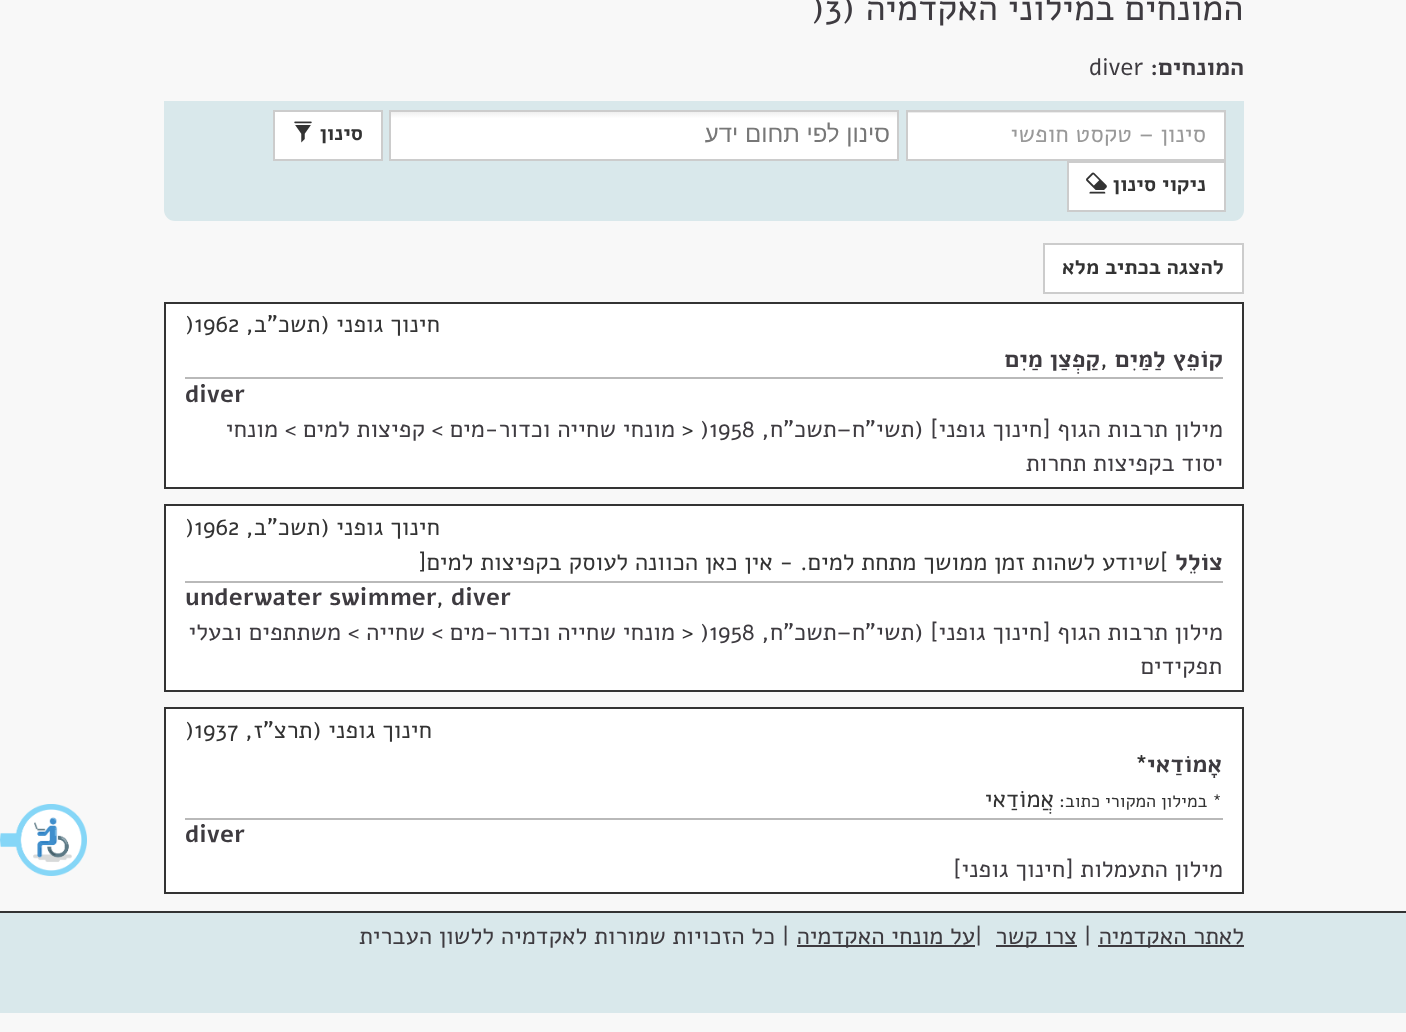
<!DOCTYPE html>
<meta charset="utf-8">
<style>body { margin: 0 } canvas { display: block }</style>
<canvas id="canvas" width="1406" height="1032"></canvas>
<img id="img1" src="images/1.png" hidden>
<img id="img2" src="images/2.png" hidden>
<img id="img3" src="images/3.png" hidden>
<script>
window.onload = function () {
    const canvas = document.getElementById('canvas');
    const context = canvas.getContext('2d');
    context.miterLimit = 4;
    context.fontKerning = 'normal';
    let gradient;

    context.fillStyle = 'rgb(248, 248, 248)';
    context.fillRect(0, 0, 1406, 1032);
    context.fillStyle = 'rgb(217, 232, 235)';
    context.beginPath();
    context.roundRect(164, 101, 1080, 120, [0, 0, 11, 11]);
    context.fill();
    context.fillStyle = 'rgb(255, 255, 255)';
    context.fillRect(908, 113, 316, 46);
    context.fillStyle = 'rgb(236, 236, 236)';
    context.fillRect(908, 112, 316, 1);
    context.strokeStyle = 'rgb(204, 204, 204)';
    context.lineWidth = 2;
    context.strokeRect(907, 111, 318, 49);
    gradient = context.createLinearGradient(644, 111, 644, 159);
    gradient.addColorStop(0.01, 'rgb(238, 238, 238)');
    gradient.addColorStop(0.15, 'rgb(255, 255, 255)');
    context.fillStyle = gradient;
    context.fillRect(391, 112, 506, 47);
    context.strokeRect(390, 111, 508, 49);
    context.fillStyle = 'rgb(255, 255, 255)';
    context.beginPath();
    context.rect(274, 111, 108, 49);
    context.fill();
    context.stroke();
    context.drawImage(document.getElementById('img1'), 294, 121, 18, 22);
    context.beginPath();
    context.rect(1068, 162, 157, 49);
    context.fill();
    context.stroke();
    context.drawImage(document.getElementById('img2'), 1086, 172, 21, 22);
    context.beginPath();
    context.rect(1044, 244, 199, 49);
    context.fill();
    context.stroke();
    context.beginPath();
    context.rect(165, 303, 1078, 185);
    context.fill();
    context.strokeStyle = 'rgb(51, 51, 51)';
    context.stroke();
    context.fillStyle = 'rgb(185, 185, 185)';
    context.fillRect(185, 377, 1038, 2);
    context.fillStyle = 'rgb(255, 255, 255)';
    context.beginPath();
    context.rect(165, 505, 1078, 186);
    context.fill();
    context.stroke();
    context.fillStyle = 'rgb(185, 185, 185)';
    context.fillRect(185, 581, 1038, 2);
    context.fillStyle = 'rgb(255, 255, 255)';
    context.beginPath();
    context.rect(165, 708, 1078, 185);
    context.fill();
    context.stroke();
    context.fillStyle = 'rgb(185, 185, 185)';
    context.fillRect(185, 818, 1038, 2);
    context.fillStyle = 'rgb(217, 232, 235)';
    context.fillRect(0, 913, 1406, 100);
    context.fillStyle = 'rgb(51, 51, 51)';
    context.fillRect(0, 911, 1406, 2);
    context.fillStyle = 'rgb(62, 59, 64)';
    context.fillRect(1098, 945, 146, 2);
    context.fillRect(996, 945, 81, 2);
    context.fillRect(797, 945, 178, 2);
    context.drawImage(document.getElementById('img3'), 0, 804, 87, 72);
    context.direction = 'rtl';
    context.font = '36px Alef';
    context.fillText('המונחים במילוני האקדמיה (', 1243, 20);
    context.direction = 'ltr';
    context.fillText(')3', 811, 20);
    context.direction = 'rtl';
    context.font = 'bold 24px Alef';
    context.fillText('המונחים:', 1244, 75);
    context.direction = 'ltr';
    context.font = '24px Alef';
    context.fillText('diver', 1089, 75);
    context.direction = 'rtl';
    context.fillStyle = 'rgb(153, 153, 153)';
    context.fillText('סינון – טקסט חופשי', 1206, 142);
    context.font = '24px Liberation Sans';
    context.fillStyle = 'rgb(119, 119, 119)';
    context.fillText('סינון לפי תחום ידע', 890, 142);
    context.font = 'bold 21px Alef';
    context.fillStyle = 'rgb(51, 51, 51)';
    context.fillText('סינון', 363, 140);
    context.fillText('ניקוי סינון', 1206, 191);
    context.fillText('להצגה בכתיב מלא', 1224, 274);
    context.font = '24px Alef';
    context.fillText('חינוך גופני (תשכ"ב,', 440, 332);
    context.direction = 'ltr';
    context.fillText(')1962', 185, 332);
    context.direction = 'rtl';
    context.font = 'bold 24px Alef';
    context.fillStyle = 'rgb(62, 59, 64)';
    context.fillText('קוֹפֵץ לַמַּיִם', 1223, 367);
    context.direction = 'ltr';
    context.font = '24px Alef';
    context.fillStyle = 'rgb(51, 51, 51)';
    context.fillText(',', 1100, 367);
    context.direction = 'rtl';
    context.font = 'bold 24px Alef';
    context.fillStyle = 'rgb(62, 59, 64)';
    context.fillText('קַפְצַן מַיִם', 1100, 367);
    context.direction = 'ltr';
    context.fillText('diver', 185, 402);
    context.direction = 'rtl';
    context.font = '24px Alef';
    context.fillText('מילון תרבות הגוף [חינוך גופני] (תשי"ח–תשכ"ח,', 1223, 437);
    context.direction = 'ltr';
    context.fillText(')1958', 700, 437);
    context.fillStyle = 'rgb(51, 51, 51)';
    context.fillText('>', 682, 437);
    context.direction = 'rtl';
    context.fillStyle = 'rgb(62, 59, 64)';
    context.fillText('מונחי שחייה וכדור-מים >', 675, 437);
    context.fillText('קפיצות למים >', 425, 437);
    context.fillText('מונחי', 278, 437);
    context.fillText('יסוד בקפיצות תחרות', 1223, 471);
    context.fillStyle = 'rgb(51, 51, 51)';
    context.fillText('חינוך גופני (תשכ"ב,', 440, 535);
    context.direction = 'ltr';
    context.fillText(')1962', 185, 535);
    context.direction = 'rtl';
    context.font = 'bold 24px Alef';
    context.fillStyle = 'rgb(62, 59, 64)';
    context.fillText('צוֹלֵל', 1223, 570);
    context.direction = 'ltr';
    context.font = '24px Alef';
    context.fillStyle = 'rgb(51, 51, 51)';
    context.fillText('[', 1160, 570);
    context.direction = 'rtl';
    context.fillText('שיודע לשהות זמן ממושך מתחת למים. - אין כאן הכוונה לעוסק בקפיצות למים', 1160, 570);
    context.direction = 'ltr';
    context.fillText(']', 418, 570);
    context.font = 'bold 24px Alef';
    context.fillStyle = 'rgb(62, 59, 64)';
    context.fillText('diver', 451, 605);
    context.font = '24px Alef';
    context.fillStyle = 'rgb(51, 51, 51)';
    context.fillText(',', 436, 605);
    context.font = 'bold 24px Alef';
    context.fillStyle = 'rgb(62, 59, 64)';
    context.fillText('underwater swimmer', 185, 605);
    context.direction = 'rtl';
    context.font = '24px Alef';
    context.fillText('מילון תרבות הגוף [חינוך גופני] (תשי"ח–תשכ"ח,', 1223, 640);
    context.direction = 'ltr';
    context.fillText(')1958', 700, 640);
    context.fillStyle = 'rgb(51, 51, 51)';
    context.fillText('>', 682, 640);
    context.direction = 'rtl';
    context.fillStyle = 'rgb(62, 59, 64)';
    context.fillText('מונחי שחייה וכדור-מים >', 675, 640);
    context.fillText('שחייה >', 425, 640);
    context.fillText('משתתפים ובעלי', 341, 640);
    context.fillText('תפקידים', 1222, 674);
    context.fillStyle = 'rgb(51, 51, 51)';
    context.fillText('חינוך גופני (תרצ"ז,', 432, 738);
    context.direction = 'ltr';
    context.fillText(')1937', 185, 738);
    context.direction = 'rtl';
    context.font = 'bold 24px Alef';
    context.fillStyle = 'rgb(62, 59, 64)';
    context.fillText('אָמוֹדַאי', 1222, 772);
    context.direction = 'ltr';
    context.fillStyle = 'rgb(51, 51, 51)';
    context.fillText('*', 1135, 772);
    context.direction = 'rtl';
    context.font = '18px Alef';
    context.fillText('* במילון המקורי כתוב:', 1222, 807);
    context.font = '24px Alef';
    context.fillText('אֲמוֹדַאי', 1054, 807);
    context.direction = 'ltr';
    context.font = 'bold 24px Alef';
    context.fillStyle = 'rgb(62, 59, 64)';
    context.fillText('diver', 185, 842);
    context.direction = 'rtl';
    context.font = '24px Alef';
    context.fillText('מילון התעמלות [חינוך גופני]', 1223, 877);
    context.fillText('לאתר האקדמיה', 1244, 944);
    context.direction = 'ltr';
    context.fillText('|', 1084, 944);
    context.direction = 'rtl';
    context.fillText('צרו קשר', 1077, 944);
    context.direction = 'ltr';
    context.fillText('|', 975, 944);
    context.direction = 'rtl';
    context.fillText('על מונחי האקדמיה', 975, 944);
    context.direction = 'ltr';
    context.fillText('|', 782, 944);
    context.direction = 'rtl';
    context.fillText('כל הזכויות שמורות לאקדמיה ללשון העברית', 775, 944);
};
</script>
